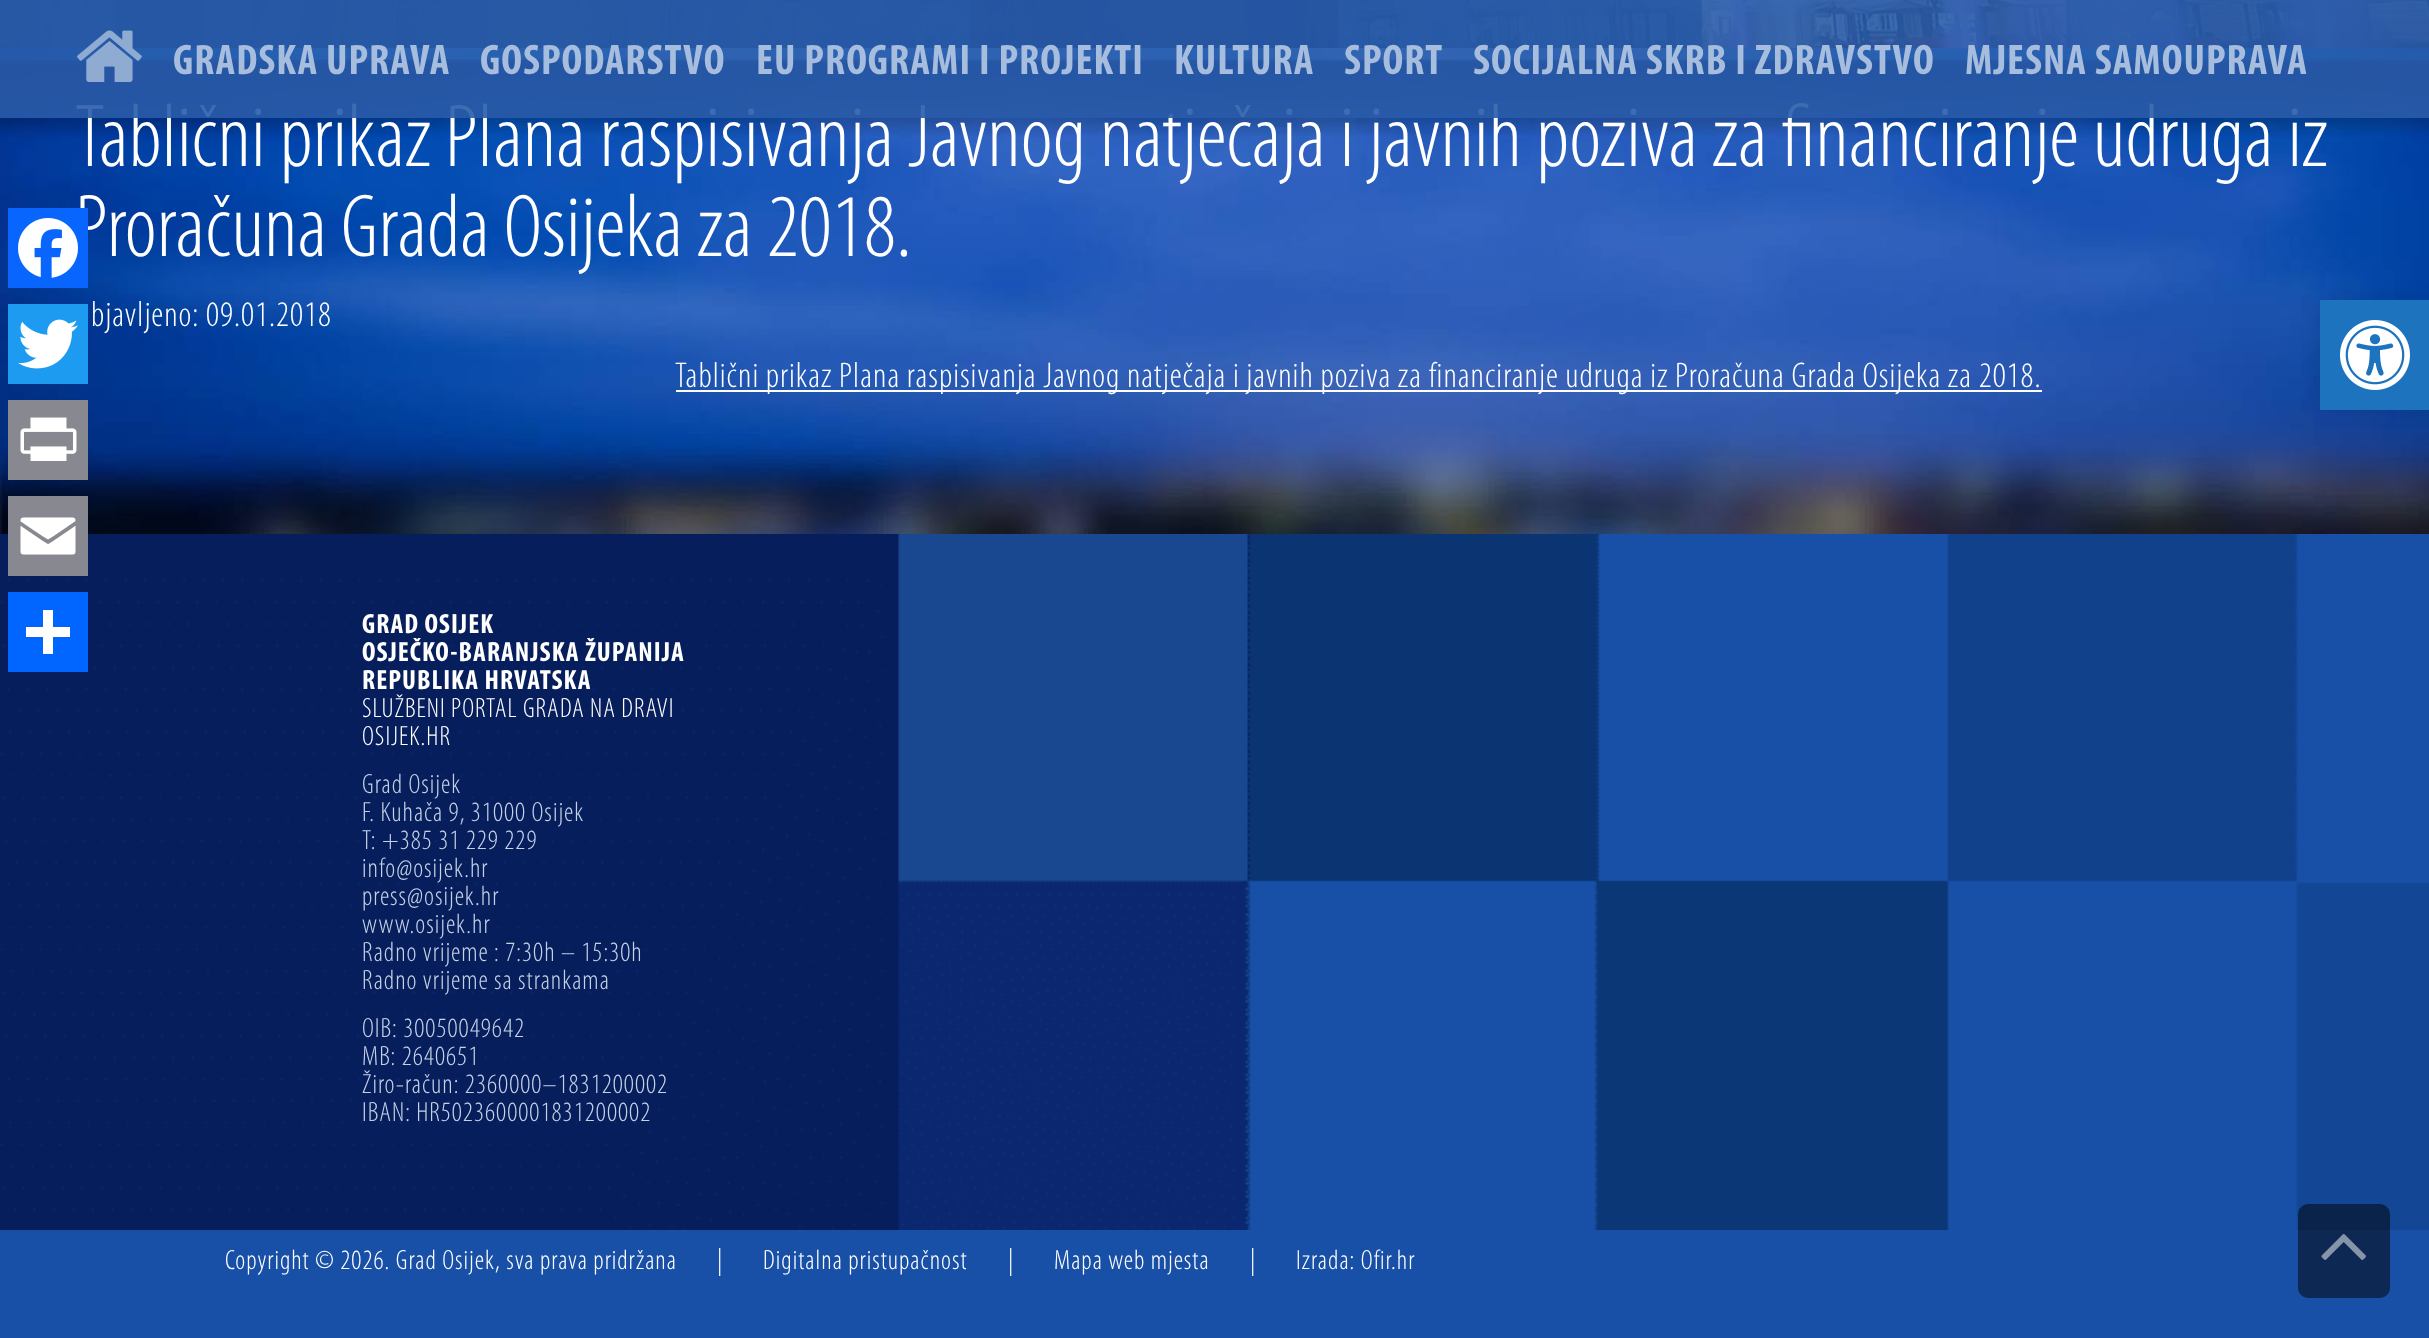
<!DOCTYPE html>
<meta charset="utf-8">
<style>body { margin: 0 } canvas { display: block }</style>
<canvas id="canvas" width="2429" height="1338"></canvas>
<img id="img1" src="images/2.png" hidden>
<img id="img2" src="images/1.png" hidden>
<img id="img3" src="images/8.png" hidden>
<img id="img4" src="images/5.png" hidden>
<img id="img5" src="images/6.png" hidden>
<img id="img6" src="images/10.png" hidden>
<img id="img7" src="images/7.png" hidden>
<img id="img8" src="images/9.png" hidden>
<img id="img9" src="images/11.png" hidden>
<img id="img10" src="images/3.png" hidden>
<img id="img11" src="images/4.png" hidden>
<script>
window.onload = function () {
    const canvas = document.getElementById('canvas');
    const context = canvas.getContext('2d');
    context.miterLimit = 4;
    context.fontKerning = 'normal';

    context.fillStyle = 'rgb(255, 255, 255)';
    context.fillRect(0, 0, 2429, 1338);
    context.drawImage(document.getElementById('img1'), 0, 0, 2429, 48);
    context.drawImage(document.getElementById('img2'), 0, 0, 2429, 48);
    context.drawImage(document.getElementById('img3'), 0, 48, 2429, 486);
    context.fillStyle = 'rgb(29, 155, 240)';
    context.fillRect(8, 304, 80, 80);
    context.drawImage(document.getElementById('img4'), 18, 319, 60, 50);
    context.fillStyle = 'rgb(136, 137, 144)';
    context.fillRect(8, 400, 80, 80);
    context.drawImage(document.getElementById('img5'), 20, 417, 57, 44);
    context.fillStyle = 'rgb(24, 80, 167)';
    context.fillRect(0, 534, 2429, 804);
    context.drawImage(document.getElementById('img6'), 0, 534, 2429, 696);
    context.fillStyle = 'rgb(136, 137, 144)';
    context.fillRect(8, 496, 80, 80);
    context.drawImage(document.getElementById('img7'), 20, 517, 56, 38);
    context.fillStyle = 'rgb(1, 102, 255)';
    context.fillRect(8, 592, 80, 80);
    context.fillStyle = 'rgb(255, 255, 255)';
    context.fillRect(43, 610, 10, 44);
    context.fillRect(26, 627, 44, 10);
    context.fillRect(676, 390, 1366, 2);
    context.fillStyle = 'rgba(0, 0, 0, 0.1)';
    context.filter = 'blur(10px)';
    context.beginPath();
    context.rect(2320, 300, 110, 110);
    context.fill();
    context.filter = 'none';
    context.fillStyle = 'rgb(30, 115, 190)';
    context.fillRect(2320, 300, 109, 110);
    context.drawImage(document.getElementById('img8'), 2340, 320, 70, 70);
    context.fillStyle = 'rgba(0, 0, 0, 0.5)';
    context.beginPath();
    context.roundRect(2298, 1204, 92, 94, 10);
    context.fill();
    context.drawImage(document.getElementById('img9'), 2321, 1234, 45, 26);
    context.font = '300 90px Myriad';
    context.fillStyle = 'rgb(255, 255, 255)';
    context.fillText('Tablični prikaz Plana raspisivanja Javnog natječaja i javnih poziva za financiranje udruga iz', 75, 166);
    context.fillStyle = 'rgba(41, 92, 171, 0.9)';
    context.fillRect(0, 0, 2429, 118);
    context.letterSpacing = '1px';
    context.font = 'bold 43px Myriad';
    context.fillStyle = 'rgb(167, 189, 222)';
    context.fillText('MJESNA SAMOUPRAVA', 1965, 74);
    context.fillText('SOCIJALNA SKRB I ZDRAVSTVO', 1473, 74);
    context.fillText('SPORT', 1344, 74);
    context.fillText('KULTURA', 1174, 74);
    context.fillText('EU PROGRAMI I PROJEKTI', 756, 74);
    context.fillText('GOSPODARSTVO', 480, 74);
    context.fillText('GRADSKA UPRAVA', 173, 74);
    context.drawImage(document.getElementById('img10'), 77, 30, 65, 52);
    context.letterSpacing = '0px';
    context.font = '300 90px Myriad';
    context.fillStyle = 'rgb(255, 255, 255)';
    context.fillText('Proračuna Grada Osijeka za 2018.', 75, 256);
    context.fillStyle = 'rgb(8, 102, 255)';
    context.fillRect(8, 208, 80, 80);
    context.drawImage(document.getElementById('img11'), 18, 218, 60, 60);
    context.letterSpacing = '1px';
    context.font = '300 36px Myriad';
    context.fillStyle = 'rgb(255, 255, 255)';
    context.fillText('bjavljeno: 09.01.2018', 91, 326);
    context.fillText('Tablični prikaz Plana raspisivanja Javnog natječaja i javnih poziva za financiranje udruga iz Proračuna Grada Osijeka za 2018.', 675, 387);
    context.font = 'bold 28px Myriad';
    context.fillText('GRAD OSIJEK', 362, 633);
    context.fillText('OSJEČKO-BARANJSKA ŽUPANIJA', 362, 661);
    context.fillText('REPUBLIKA HRVATSKA', 362, 689);
    context.font = '300 28px Myriad';
    context.fillText('SLUŽBENI PORTAL GRADA NA DRAVI', 362, 717);
    context.fillText('OSIJEK.HR', 362, 745);
    context.fillStyle = 'rgb(196, 209, 230)';
    context.fillText('Grad Osijek', 362, 793);
    context.fillText('F. Kuhača 9, 31000 Osijek', 362, 821);
    context.fillText('T: +385 31 229 229', 362, 849);
    context.fillText('info@osijek.hr', 362, 877);
    context.fillText('press@osijek.hr', 362, 905);
    context.fillText('www.osijek.hr', 362, 933);
    context.fillText('Radno vrijeme : 7:30h – 15:30h', 362, 961);
    context.fillText('Radno vrijeme sa strankama', 362, 989);
    context.fillText('OIB: 30050049642', 362, 1037);
    context.fillText('MB: 2640651', 362, 1065);
    context.fillText('Žiro-račun: 2360000–1831200002', 362, 1093);
    context.fillText('IBAN: HR5023600001831200002', 362, 1121);
    context.fillStyle = 'rgb(255, 255, 255)';
    context.fillText('Copyright © 2026. Grad Osijek, sva prava pridržana', 225, 1269);
    context.fillText('|', 717, 1269);
    context.fillText('Digitalna pristupačnost', 763, 1269);
    context.fillText('|', 1008, 1269);
    context.fillText('Mapa web mjesta', 1054, 1269);
    context.fillText('|', 1250, 1269);
    context.fillText('Izrada: Ofir.hr', 1296, 1269);
};
</script>
